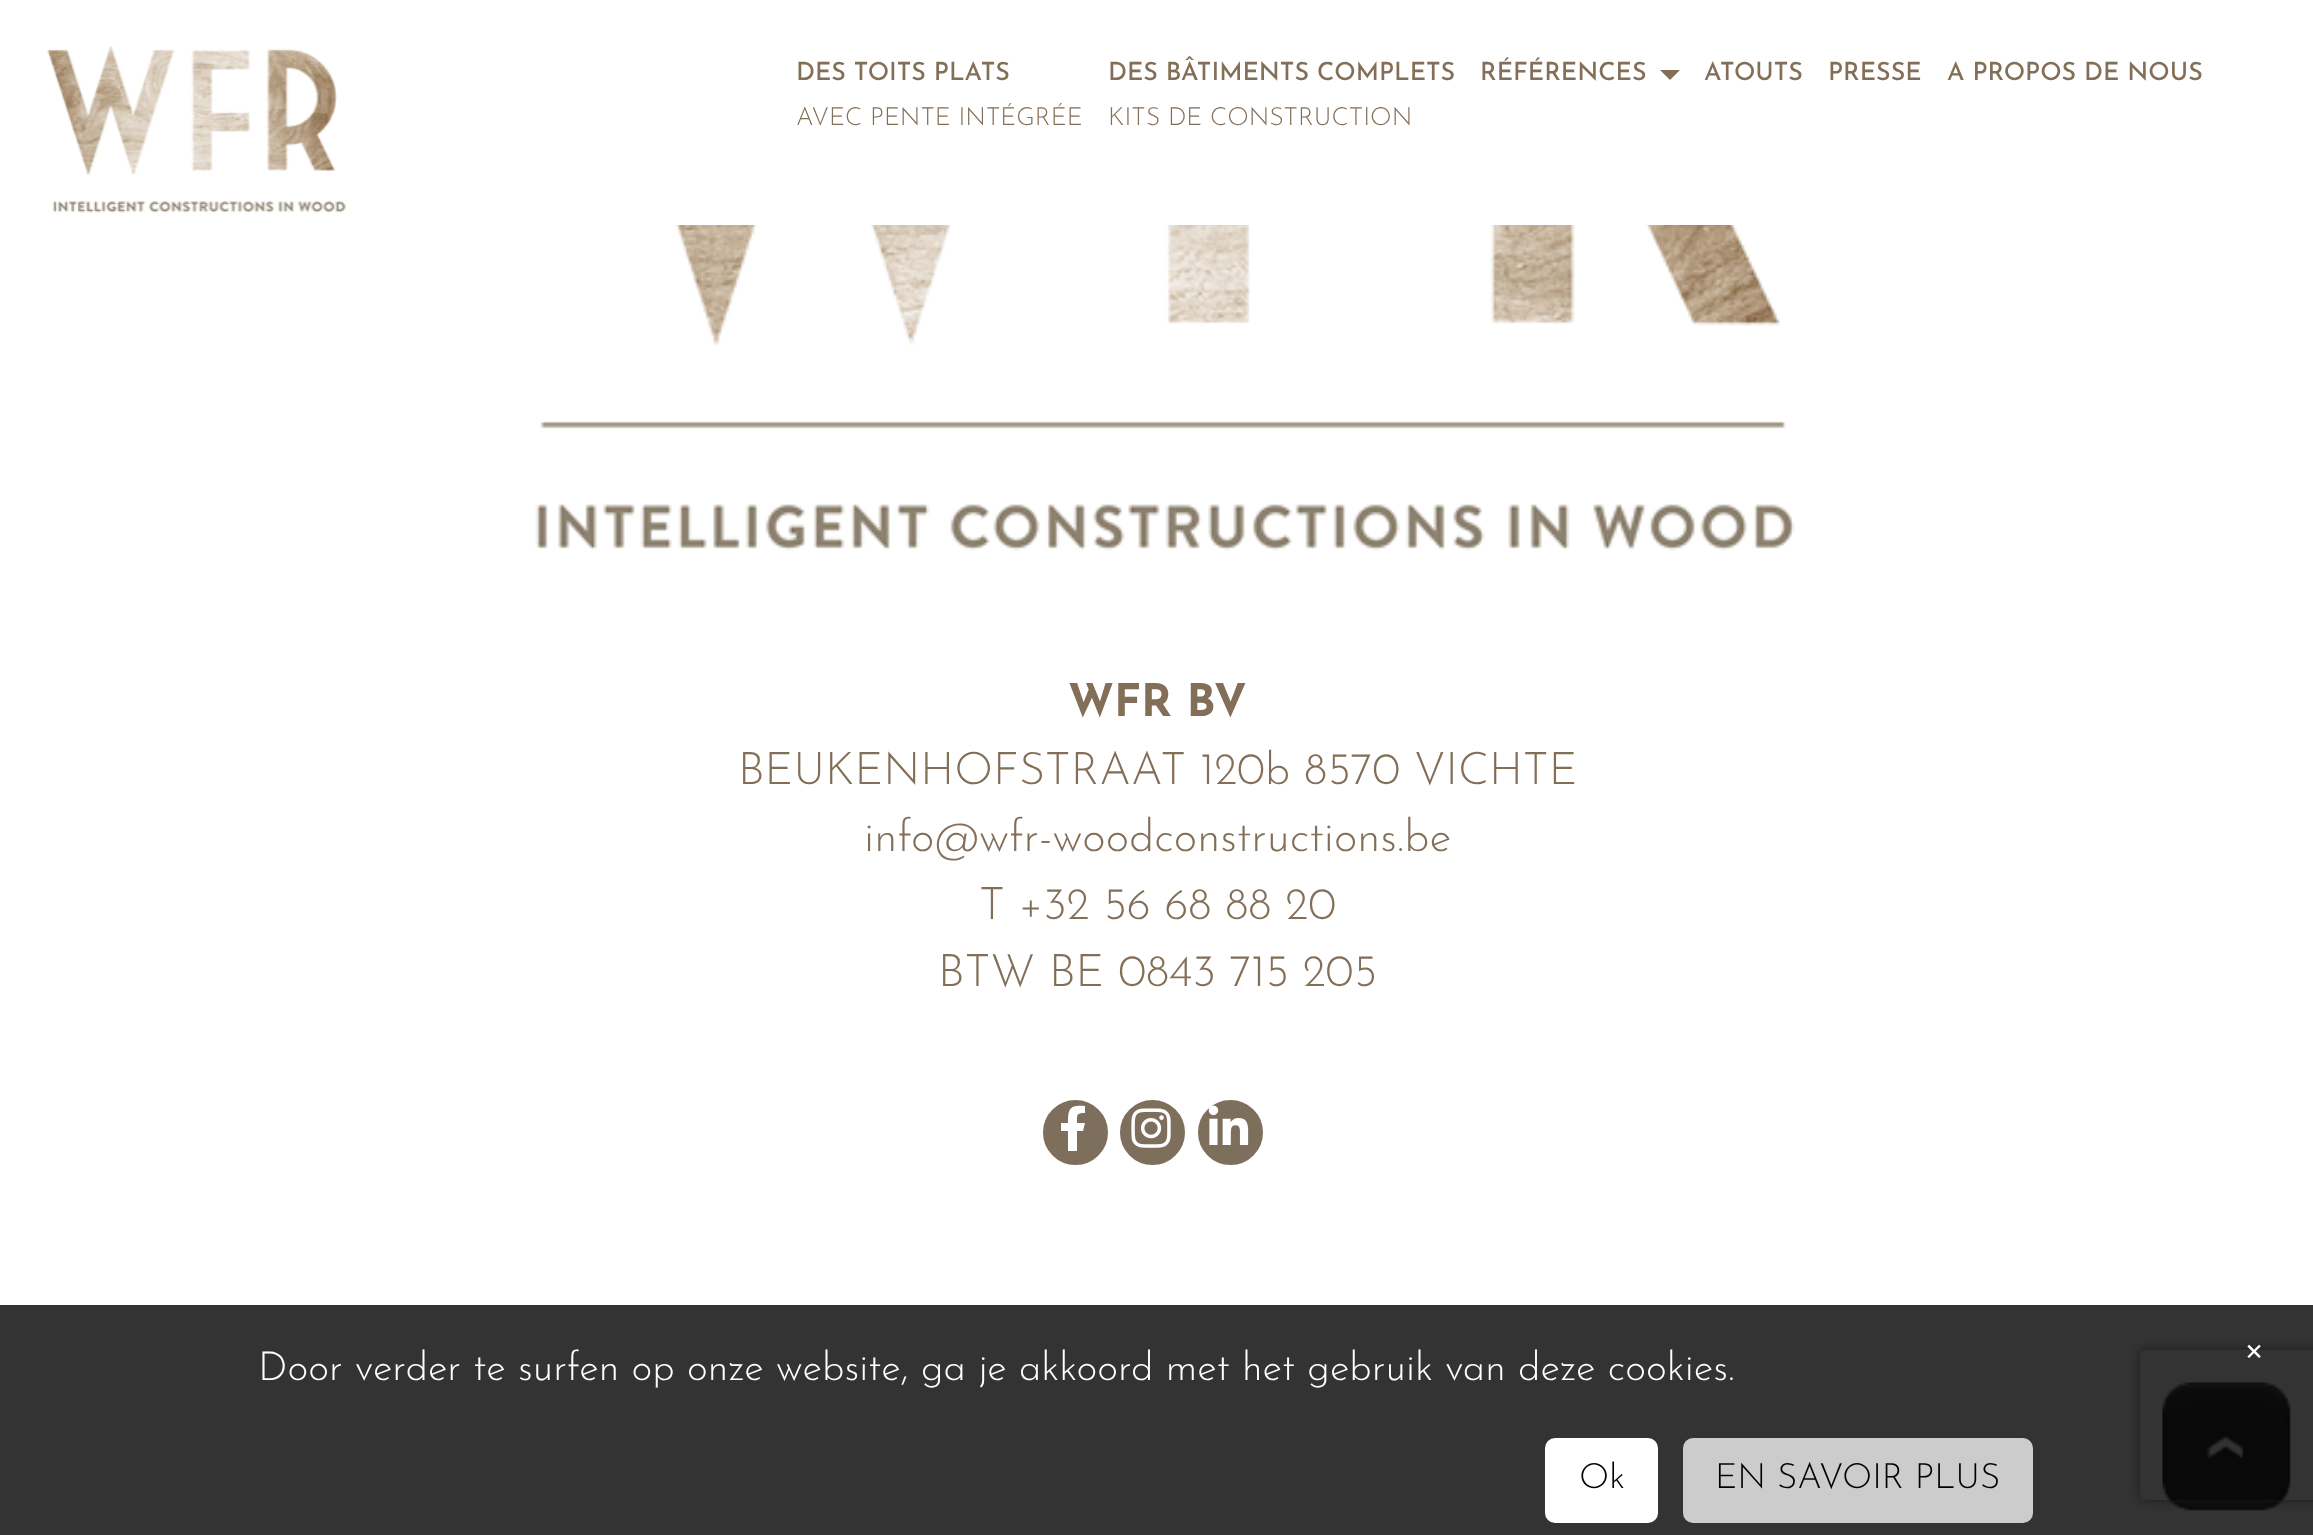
<!DOCTYPE html>
<meta charset="utf-8">
<style>body { margin: 0 } canvas { display: block }</style>
<canvas id="canvas" width="2313" height="1535"></canvas>
<img id="img1" src="images/1.png" hidden>
<img id="img2" src="images/2.png" hidden>
<img id="img3" src="images/3.png" hidden>
<img id="img4" src="images/4.png" hidden>
<img id="img5" src="images/5.png" hidden>
<script>
window.onload = function () {
    const canvas = document.getElementById('canvas');
    const context = canvas.getContext('2d');
    context.miterLimit = 4;
    context.fontKerning = 'normal';

    context.fillStyle = 'rgb(255, 255, 255)';
    context.fillRect(0, 0, 2313, 1535);
    context.drawImage(document.getElementById('img1'), 47, 46, 299, 167);
    context.fillStyle = 'rgb(131, 110, 88)';
    context.beginPath();
    context.moveTo(1660, 70);
    context.lineTo(1680, 70);
    context.lineTo(1670, 80);
    context.closePath();
    context.fill();
    context.drawImage(document.getElementById('img2'), 535, 225, 1260, 326);
    context.fillStyle = 'rgb(126, 111, 93)';
    context.beginPath();
    context.arc(1075.5, 1132.5, 31, 0, 2 * Math.PI);
    context.fill();
    context.strokeStyle = 'rgb(126, 111, 93)';
    context.lineWidth = 3;
    context.stroke();
    context.fillStyle = 'rgb(255, 255, 255)';
    context.beginPath();
    context.moveTo(1083, 1131);
    context.lineTo(1077, 1131);
    context.lineTo(1077, 1151);
    context.lineTo(1068, 1151);
    context.lineTo(1068, 1131);
    context.lineTo(1061, 1131);
    context.lineTo(1061, 1123);
    context.lineTo(1068, 1123);
    context.bezierCurveTo(1068, 1108, 1070, 1105, 1085, 1106);
    context.lineTo(1085, 1113);
    context.bezierCurveTo(1076, 1113, 1077, 1115, 1077, 1123);
    context.lineTo(1085, 1123);
    context.closePath();
    context.fill();
    context.fillStyle = 'rgb(126, 111, 93)';
    context.beginPath();
    context.arc(1152.5, 1132.5, 31, 0, 2 * Math.PI);
    context.fill();
    context.stroke();
    context.drawImage(document.getElementById('img3'), 1131, 1108, 40, 40);
    context.beginPath();
    context.arc(1230.5, 1132.5, 31, 0, 2 * Math.PI);
    context.fill();
    context.stroke();
    context.drawImage(document.getElementById('img4'), 1208, 1105, 41, 40);
    context.drawImage(document.getElementById('img5'), 2162, 1382, 129, 129);
    context.save();
    context.beginPath();
    context.moveTo(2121, 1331);
    context.lineTo(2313, 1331);
    context.lineTo(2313, 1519);
    context.lineTo(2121, 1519);
    context.closePath();
    context.moveTo(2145, 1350);
    context.lineTo(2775, 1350);
    context.bezierCurveTo(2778, 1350, 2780, 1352, 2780, 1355);
    context.lineTo(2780, 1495);
    context.bezierCurveTo(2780, 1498, 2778, 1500, 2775, 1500);
    context.lineTo(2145, 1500);
    context.bezierCurveTo(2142, 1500, 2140, 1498, 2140, 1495);
    context.lineTo(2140, 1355);
    context.bezierCurveTo(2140, 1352, 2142, 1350, 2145, 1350);
    context.closePath();
    context.clip('evenodd');
    context.fillStyle = 'rgb(128, 128, 128)';
    context.filter = 'blur(6px)';
    context.beginPath();
    context.roundRect(2140, 1350, 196, 150, 5);
    context.fill();
    context.filter = 'none';
    context.restore();
    context.fillStyle = 'rgba(0, 0, 0, 0.8)';
    context.fillRect(0, 1305, 2313, 230);
    context.fillStyle = 'rgb(255, 255, 255)';
    context.beginPath();
    context.roundRect(1545, 1438, 113, 85, 10);
    context.fill();
    context.fillStyle = 'rgb(204, 204, 204)';
    context.beginPath();
    context.roundRect(1683, 1438, 350, 85, 10);
    context.fill();
    context.font = '500 25px Josefin Sans';
    context.fillStyle = 'rgb(131, 110, 88)';
    context.fillText('DES TOITS PLATS', 796, 80);
    context.font = '300 25px Josefin Sans';
    context.fillText('AVEC PENTE INTÉGRÉE', 796, 125);
    context.font = '500 25px Josefin Sans';
    context.fillText('DES BÂTIMENTS COMPLETS', 1108, 80);
    context.font = '300 25px Josefin Sans';
    context.fillText('KITS DE CONSTRUCTION', 1108, 125);
    context.font = '500 25px Josefin Sans';
    context.fillText('RÉFÉRENCES', 1480, 80);
    context.fillText('ATOUTS', 1704, 80);
    context.fillText('PRESSE', 1828, 80);
    context.fillText('A PROPOS DE NOUS', 1947, 80);
    context.font = 'bold 45px Josefin Sans';
    context.fillText('WFR BV', 1068, 716);
    context.font = '300 45px Josefin Sans';
    context.fillText('BEUKENHOFSTRAAT 120b 8570 VICHTE', 738, 784);
    context.fillText('info@wfr-woodconstructions.be', 864, 851);
    context.fillText('T +32 56 68 88 20', 979, 919);
    context.fillText('BTW BE 0843 715 205', 938, 986);
    context.font = '300 40px Josefin Sans';
    context.fillStyle = 'rgb(255, 255, 255)';
    context.fillText('Door verder te surfen op onze website, ga je akkoord met het gebruik van deze cookies.', 258, 1380);
    context.font = '300 45px Josefin Sans';
    context.fillText('×', 2242, 1358);
    context.font = '300 35px Josefin Sans';
    context.fillStyle = 'rgb(0, 0, 0)';
    context.fillText('Ok', 1579, 1488);
    context.fillText('EN SAVOIR PLUS', 1715, 1488);
};
</script>
